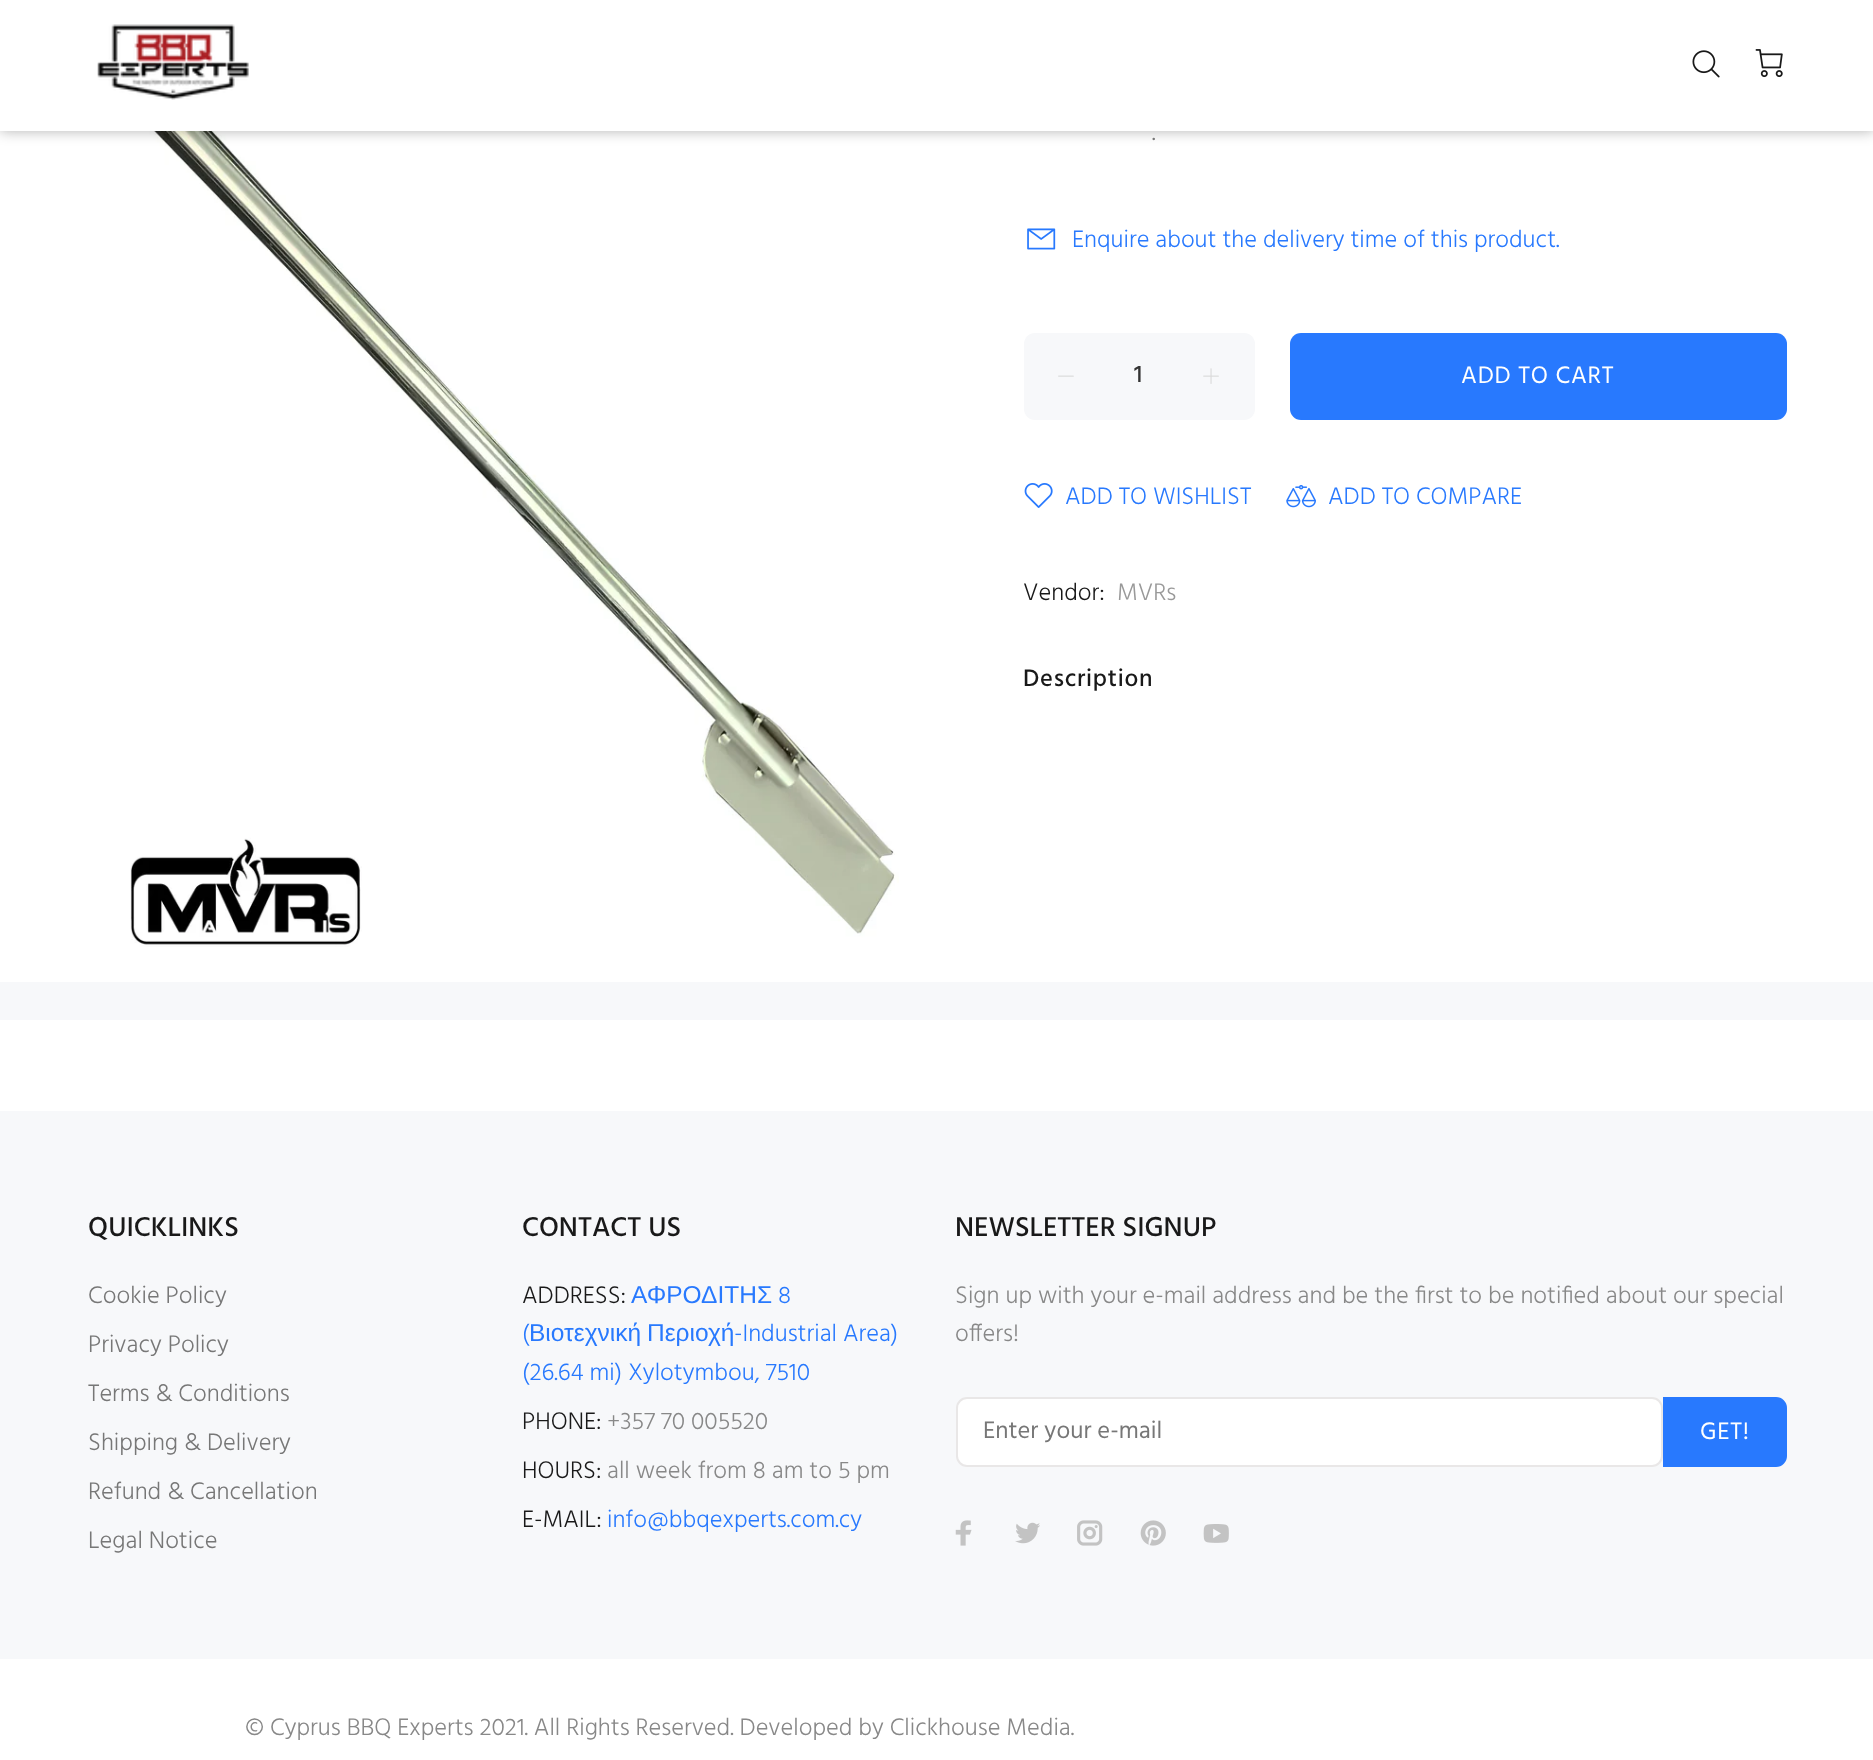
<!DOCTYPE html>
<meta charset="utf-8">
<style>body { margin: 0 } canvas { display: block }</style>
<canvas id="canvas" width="1873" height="1760"></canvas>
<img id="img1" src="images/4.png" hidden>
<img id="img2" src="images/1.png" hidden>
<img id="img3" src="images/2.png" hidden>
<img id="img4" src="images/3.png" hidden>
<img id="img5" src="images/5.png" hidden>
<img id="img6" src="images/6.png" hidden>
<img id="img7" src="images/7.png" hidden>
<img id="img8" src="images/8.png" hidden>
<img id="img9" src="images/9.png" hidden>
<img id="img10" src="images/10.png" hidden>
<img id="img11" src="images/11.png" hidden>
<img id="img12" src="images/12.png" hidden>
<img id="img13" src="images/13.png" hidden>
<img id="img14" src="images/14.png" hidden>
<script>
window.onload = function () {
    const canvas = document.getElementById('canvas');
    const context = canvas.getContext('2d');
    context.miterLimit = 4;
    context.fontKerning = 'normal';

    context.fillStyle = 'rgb(255, 255, 255)';
    context.fillRect(0, 0, 1873, 1760);
    context.drawImage(document.getElementById('img1'), 108, 131, 791, 816);
    context.fillStyle = 'rgba(0, 0, 0, 0.3)';
    context.filter = 'blur(7px)';
    context.beginPath();
    context.rect(0, 0, 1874, 131);
    context.fill();
    context.filter = 'none';
    context.fillStyle = 'rgb(255, 255, 255)';
    context.fillRect(0, 0, 1873, 131);
    context.drawImage(document.getElementById('img2'), 97, 24, 152, 76);
    context.drawImage(document.getElementById('img3'), 1692, 50, 28, 28);
    context.drawImage(document.getElementById('img4'), 1755, 49, 28, 29);
    context.drawImage(document.getElementById('img5'), 1027, 228, 29, 22);
    context.fillStyle = 'rgb(247, 248, 250)';
    context.beginPath();
    context.roundRect(1024, 333, 231, 87, 11);
    context.fill();
    context.drawImage(document.getElementById('img6'), 1058, 375, 16, 2);
    context.drawImage(document.getElementById('img7'), 1203, 368, 16, 16);
    context.fillStyle = 'rgb(40, 121, 254)';
    context.beginPath();
    context.roundRect(1290, 333, 497, 87, 11);
    context.fill();
    context.drawImage(document.getElementById('img8'), 1024, 483, 29, 25);
    context.drawImage(document.getElementById('img9'), 1286, 485, 30, 23);
    context.fillStyle = 'rgb(247, 248, 250)';
    context.fillRect(0, 982, 1873, 38);
    context.fillRect(0, 1111, 1873, 548);
    context.fillStyle = 'rgb(255, 255, 255)';
    context.beginPath();
    context.roundRect(957, 1398, 705, 68, 10);
    context.fill();
    context.strokeStyle = 'rgb(233, 231, 231)';
    context.lineWidth = 2;
    context.stroke();
    context.fillStyle = 'rgb(40, 121, 254)';
    context.beginPath();
    context.roundRect(1664, 1398, 122, 68, [0, 10, 10, 0]);
    context.fill();
    context.strokeStyle = 'rgb(40, 121, 254)';
    context.stroke();
    context.drawImage(document.getElementById('img10'), 955, 1520, 17, 26);
    context.drawImage(document.getElementById('img11'), 1015, 1522, 25, 22);
    context.drawImage(document.getElementById('img12'), 1077, 1520, 26, 26);
    context.drawImage(document.getElementById('img13'), 1140, 1520, 26, 26);
    context.drawImage(document.getElementById('img14'), 1203, 1524, 26, 19);
    context.font = '300 24.5px Hind';
    context.fillStyle = 'rgb(119, 119, 119)';
    context.fillText('.', 1152, 140);
    context.fillStyle = 'rgb(40, 121, 254)';
    context.fillText('Enquire about the delivery time of this product.', 1072, 247);
    context.font = '500 24.5px Hind';
    context.fillStyle = 'rgb(51, 51, 51)';
    context.fillText('1', 1134, 382);
    context.letterSpacing = '0.75px';
    context.font = '24.5px Hind';
    context.fillStyle = 'rgb(255, 255, 255)';
    context.fillText('ADD TO CART', 1461, 383);
    context.letterSpacing = '0px';
    context.font = '300 24.5px Hind';
    context.fillStyle = 'rgb(40, 121, 254)';
    context.fillText('ADD TO WISHLIST', 1065, 504);
    context.fillText('ADD TO COMPARE', 1328, 504);
    context.fillStyle = 'rgb(25, 25, 25)';
    context.fillText('Vendor:', 1023, 600);
    context.fillStyle = 'rgb(153, 153, 153)';
    context.fillText('MVRs', 1117, 600);
    context.letterSpacing = '0.75px';
    context.font = '500 24.5px Hind';
    context.fillStyle = 'rgb(25, 25, 25)';
    context.fillText('Description', 1023, 686);
    context.letterSpacing = '0px';
    context.font = '500 28px Hind';
    context.fillText('QUICKLINKS', 88, 1236);
    context.font = '300 24.5px Hind';
    context.fillStyle = 'rgb(119, 119, 119)';
    context.fillText('Cookie Policy', 88, 1303);
    context.fillText('Privacy Policy', 88, 1352);
    context.fillText('Terms & Conditions', 88, 1401);
    context.fillText('Shipping & Delivery', 88, 1450);
    context.fillText('Refund & Cancellation', 88, 1499);
    context.fillText('Legal Notice', 88, 1548);
    context.font = '500 28px Hind';
    context.fillStyle = 'rgb(25, 25, 25)';
    context.fillText('CONTACT US', 522, 1236);
    context.font = '300 24.5px Hind';
    context.fillText('ADDRESS:', 522, 1303);
    context.font = '24.5px Liberation Sans';
    context.fillStyle = 'rgb(40, 121, 254)';
    context.fillText('ΑΦΡΟΔΙΤΗΣ', 631, 1303);
    context.font = '300 24.5px Hind';
    context.fillText('8', 778, 1303);
    context.fillText('(', 522, 1341);
    context.font = '24.5px Liberation Sans';
    context.fillText('Βιοτεχνική', 529, 1341);
    context.fillText('Περιοχή', 647, 1341);
    context.font = '300 24.5px Hind';
    context.fillText('-Industrial Area)', 734, 1341);
    context.fillText('(26.64 mi) Xylotymbou, 7510', 522, 1380);
    context.fillStyle = 'rgb(25, 25, 25)';
    context.fillText('PHONE:', 522, 1429);
    context.fillStyle = 'rgb(136, 136, 136)';
    context.fillText('+357 70 005520', 607, 1429);
    context.fillStyle = 'rgb(25, 25, 25)';
    context.fillText('HOURS:', 522, 1478);
    context.fillStyle = 'rgb(136, 136, 136)';
    context.fillText('all week from 8 am to 5 pm', 607, 1478);
    context.fillStyle = 'rgb(25, 25, 25)';
    context.fillText('E-MAIL:', 522, 1527);
    context.fillStyle = 'rgb(40, 121, 254)';
    context.fillText('info@bbqexperts.com.cy', 607, 1527);
    context.font = '500 28px Hind';
    context.fillStyle = 'rgb(25, 25, 25)';
    context.fillText('NEWSLETTER SIGNUP', 955, 1236);
    context.font = '300 24.5px Hind';
    context.fillStyle = 'rgb(136, 136, 136)';
    context.fillText('Sign up with your e-mail address and be the first to be notified about our special', 955, 1303);
    context.fillText('offers!', 955, 1341);
    context.font = '24.5px Hind';
    context.fillStyle = 'rgb(119, 119, 119)';
    context.fillText('Enter your e-mail', 983, 1438);
    context.letterSpacing = '0.75px';
    context.fillStyle = 'rgb(255, 255, 255)';
    context.fillText('GET!', 1700, 1439);
    context.letterSpacing = '0px';
    context.font = '300 24.5px Hind';
    context.fillStyle = 'rgb(136, 136, 136)';
    context.fillText('© Cyprus BBQ Experts 2021. All Rights Reserved. Developed by Clickhouse Media.', 245, 1735);
};
</script>
